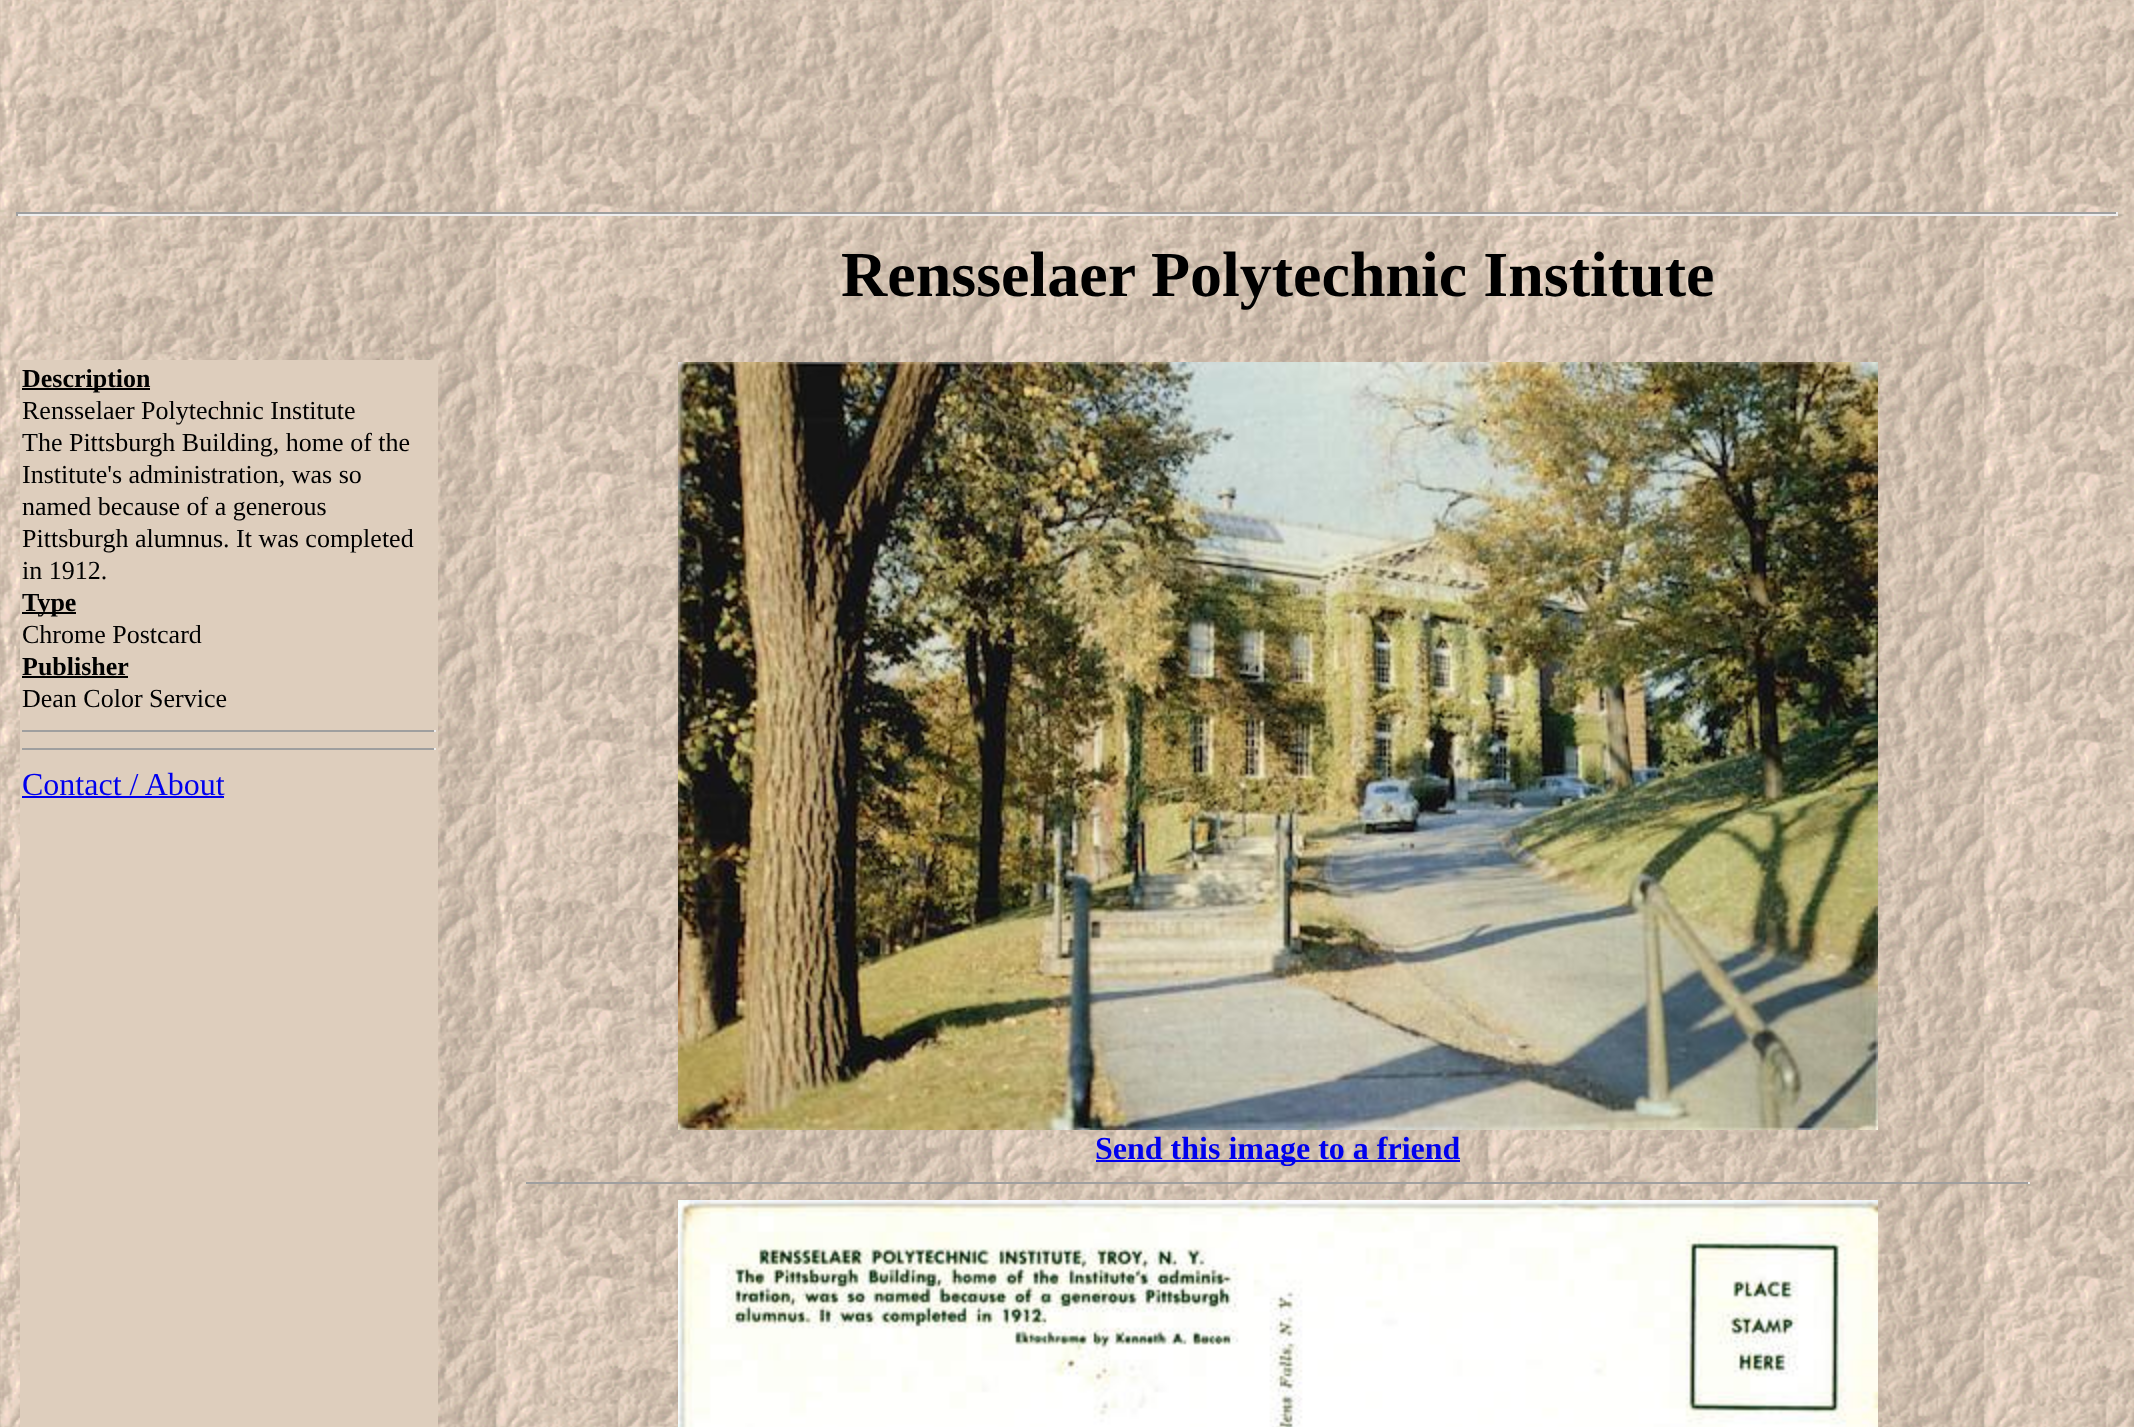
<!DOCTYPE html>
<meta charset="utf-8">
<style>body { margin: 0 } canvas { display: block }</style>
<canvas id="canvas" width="2134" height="1427"></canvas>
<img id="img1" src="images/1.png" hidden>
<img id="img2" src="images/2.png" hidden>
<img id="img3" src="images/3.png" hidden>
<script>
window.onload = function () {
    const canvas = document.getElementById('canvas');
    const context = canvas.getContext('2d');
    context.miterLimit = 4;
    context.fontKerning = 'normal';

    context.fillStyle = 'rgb(255, 255, 255)';
    context.fillRect(0, 0, 2134, 1427);
    context.drawImage(document.getElementById('img1'), 0, 0, 2134, 1427);
    context.fillStyle = 'rgb(159, 159, 159)';
    context.fillRect(16, 212, 2102, 2);
    context.fillStyle = 'rgb(238, 238, 238)';
    context.fillRect(2116, 212, 2, 4);
    context.fillRect(16, 214, 2102, 2);
    context.fillStyle = 'rgb(159, 159, 159)';
    context.fillRect(16, 212, 2, 4);
    context.fillStyle = 'rgb(222, 206, 189)';
    context.fillRect(20, 360, 418, 1067);
    context.fillStyle = 'rgb(0, 0, 0)';
    context.fillRect(22, 388, 128, 2);
    context.fillRect(22, 612, 54, 2);
    context.fillRect(22, 676, 106, 2);
    context.fillStyle = 'rgb(159, 159, 159)';
    context.fillRect(22, 730, 414, 2);
    context.fillStyle = 'rgb(238, 238, 238)';
    context.fillRect(434, 730, 2, 2);
    context.fillStyle = 'rgb(159, 159, 159)';
    context.fillRect(22, 748, 414, 2);
    context.fillStyle = 'rgb(238, 238, 238)';
    context.fillRect(434, 748, 2, 2);
    context.fillStyle = 'rgb(0, 0, 238)';
    context.fillRect(22, 796, 202, 2);
    context.drawImage(document.getElementById('img2'), 678, 362, 1200, 768);
    context.fillRect(1096, 1160, 364, 2);
    context.fillStyle = 'rgb(159, 159, 159)';
    context.fillRect(526, 1182, 1504, 2);
    context.fillStyle = 'rgb(238, 238, 238)';
    context.fillRect(2028, 1182, 2, 2);
    context.drawImage(document.getElementById('img3'), 678, 1200, 1200, 227);
    context.font = 'bold 64px Liberation Serif';
    context.fillStyle = 'rgb(0, 0, 0)';
    context.fillText('Rensselaer Polytechnic Institute', 841, 296);
    context.font = 'bold 26px Liberation Serif';
    context.fillText('Description', 22, 387);
    context.font = '26px Liberation Serif';
    context.fillText('Rensselaer Polytechnic Institute', 22, 419);
    context.fillText('The Pittsburgh Building, home of the', 22, 451);
    context.fillText('Institute\'s administration, was so', 22, 483);
    context.fillText('named because of a generous', 22, 515);
    context.fillText('Pittsburgh alumnus. It was completed', 22, 547);
    context.fillText('in 1912.', 22, 579);
    context.font = 'bold 26px Liberation Serif';
    context.fillText('Type', 22, 611);
    context.font = '26px Liberation Serif';
    context.fillText('Chrome Postcard', 22, 643);
    context.font = 'bold 26px Liberation Serif';
    context.fillText('Publisher', 22, 675);
    context.font = '26px Liberation Serif';
    context.fillText('Dean Color Service', 22, 707);
    context.font = '32px Liberation Serif';
    context.fillStyle = 'rgb(0, 0, 238)';
    context.fillText('Contact / About', 22, 795);
    context.font = 'bold 32px Liberation Serif';
    context.fillText('Send this image to a friend', 1095, 1159);
};
</script>
